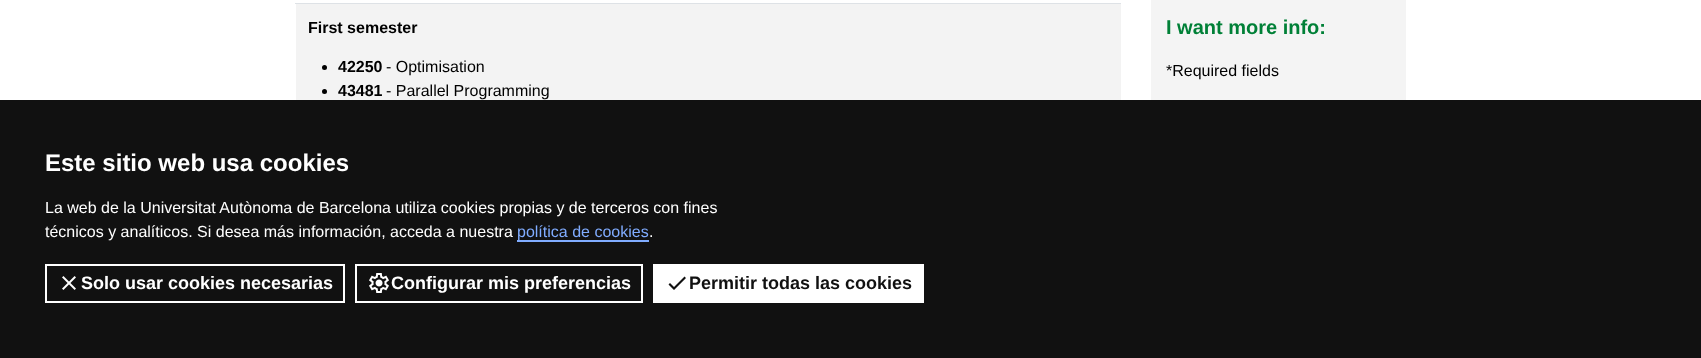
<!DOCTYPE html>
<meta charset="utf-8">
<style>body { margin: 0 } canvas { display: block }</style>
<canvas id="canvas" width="1701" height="358"></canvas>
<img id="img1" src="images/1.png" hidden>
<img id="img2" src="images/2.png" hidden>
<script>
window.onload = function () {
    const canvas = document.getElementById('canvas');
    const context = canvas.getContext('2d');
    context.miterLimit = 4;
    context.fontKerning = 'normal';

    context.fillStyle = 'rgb(255, 255, 255)';
    context.fillRect(0, 0, 1701, 358);
    context.fillStyle = 'rgb(243, 243, 243)';
    context.fillRect(296, 4, 825, 96);
    context.fillStyle = 'rgb(222, 226, 230)';
    context.fillRect(295, 3, 826, 1);
    context.fillStyle = 'rgb(0, 0, 0)';
    context.beginPath();
    context.arc(324.5, 67.5, 2.5, 0, 2 * Math.PI);
    context.fill();
    context.beginPath();
    context.arc(324.5, 91.5, 2.5, 0, 2 * Math.PI);
    context.fill();
    context.fillStyle = 'rgb(244, 244, 244)';
    context.fillRect(1151, 0, 255, 100);
    context.fillStyle = 'rgb(17, 17, 17)';
    context.fillRect(0, 100, 1701, 258);
    context.fillStyle = 'rgb(128, 172, 255)';
    context.fillRect(517, 240, 132, 2);
    context.strokeStyle = 'rgb(255, 255, 255)';
    context.lineWidth = 2;
    context.strokeRect(46, 265, 298, 37);
    context.drawImage(document.getElementById('img1'), 62, 276, 14, 14);
    context.strokeRect(356, 265, 286, 37);
    context.drawImage(document.getElementById('img2'), 369, 273, 20, 20);
    context.fillStyle = 'rgb(255, 255, 255)';
    context.fillRect(653, 264, 271, 39);
    context.fillStyle = 'rgb(17, 17, 17)';
    context.beginPath();
    context.moveTo(674, 287);
    context.lineTo(670, 283);
    context.lineTo(668.5, 284.5);
    context.lineTo(674, 290);
    context.lineTo(686, 278);
    context.lineTo(684.5, 276.5);
    context.closePath();
    context.fill();
    context.font = 'bold 16px Liberation Sans';
    context.fillStyle = 'rgb(0, 0, 0)';
    context.fillText('First semester', 308, 33);
    context.fillText('42250', 338, 72);
    context.font = '16px Liberation Sans';
    context.fillText('- Optimisation', 386, 72);
    context.font = 'bold 16px Liberation Sans';
    context.fillText('43481', 338, 96);
    context.font = '16px Liberation Sans';
    context.fillText('- Parallel Programming', 386, 96);
    context.font = 'bold 20px Liberation Sans';
    context.fillStyle = 'rgb(0, 128, 55)';
    context.fillText('I want more info:', 1166, 34);
    context.font = '16px Liberation Sans';
    context.fillStyle = 'rgb(0, 0, 0)';
    context.fillText('*Required fields', 1166, 76);
    context.font = 'bold 24px Liberation Sans';
    context.fillStyle = 'rgb(255, 255, 255)';
    context.fillText('Este sitio web usa cookies', 45, 171);
    context.font = '16px Liberation Sans';
    context.fillText('La web de la Universitat Autònoma de Barcelona utiliza cookies propias y de terceros con fines', 45, 213);
    context.fillText('técnicos y analíticos. Si desea más información, acceda a nuestra', 45, 237);
    context.fillStyle = 'rgb(128, 172, 255)';
    context.fillText('política de cookies', 517, 237);
    context.fillStyle = 'rgb(255, 255, 255)';
    context.fillText('.', 649, 237);
    context.font = 'bold 18px Liberation Sans';
    context.fillText('Solo usar cookies necesarias', 81, 289);
    context.fillText('Configurar mis preferencias', 391, 289);
    context.fillStyle = 'rgb(17, 17, 17)';
    context.fillText('Permitir todas las cookies', 689, 289);
};
</script>
